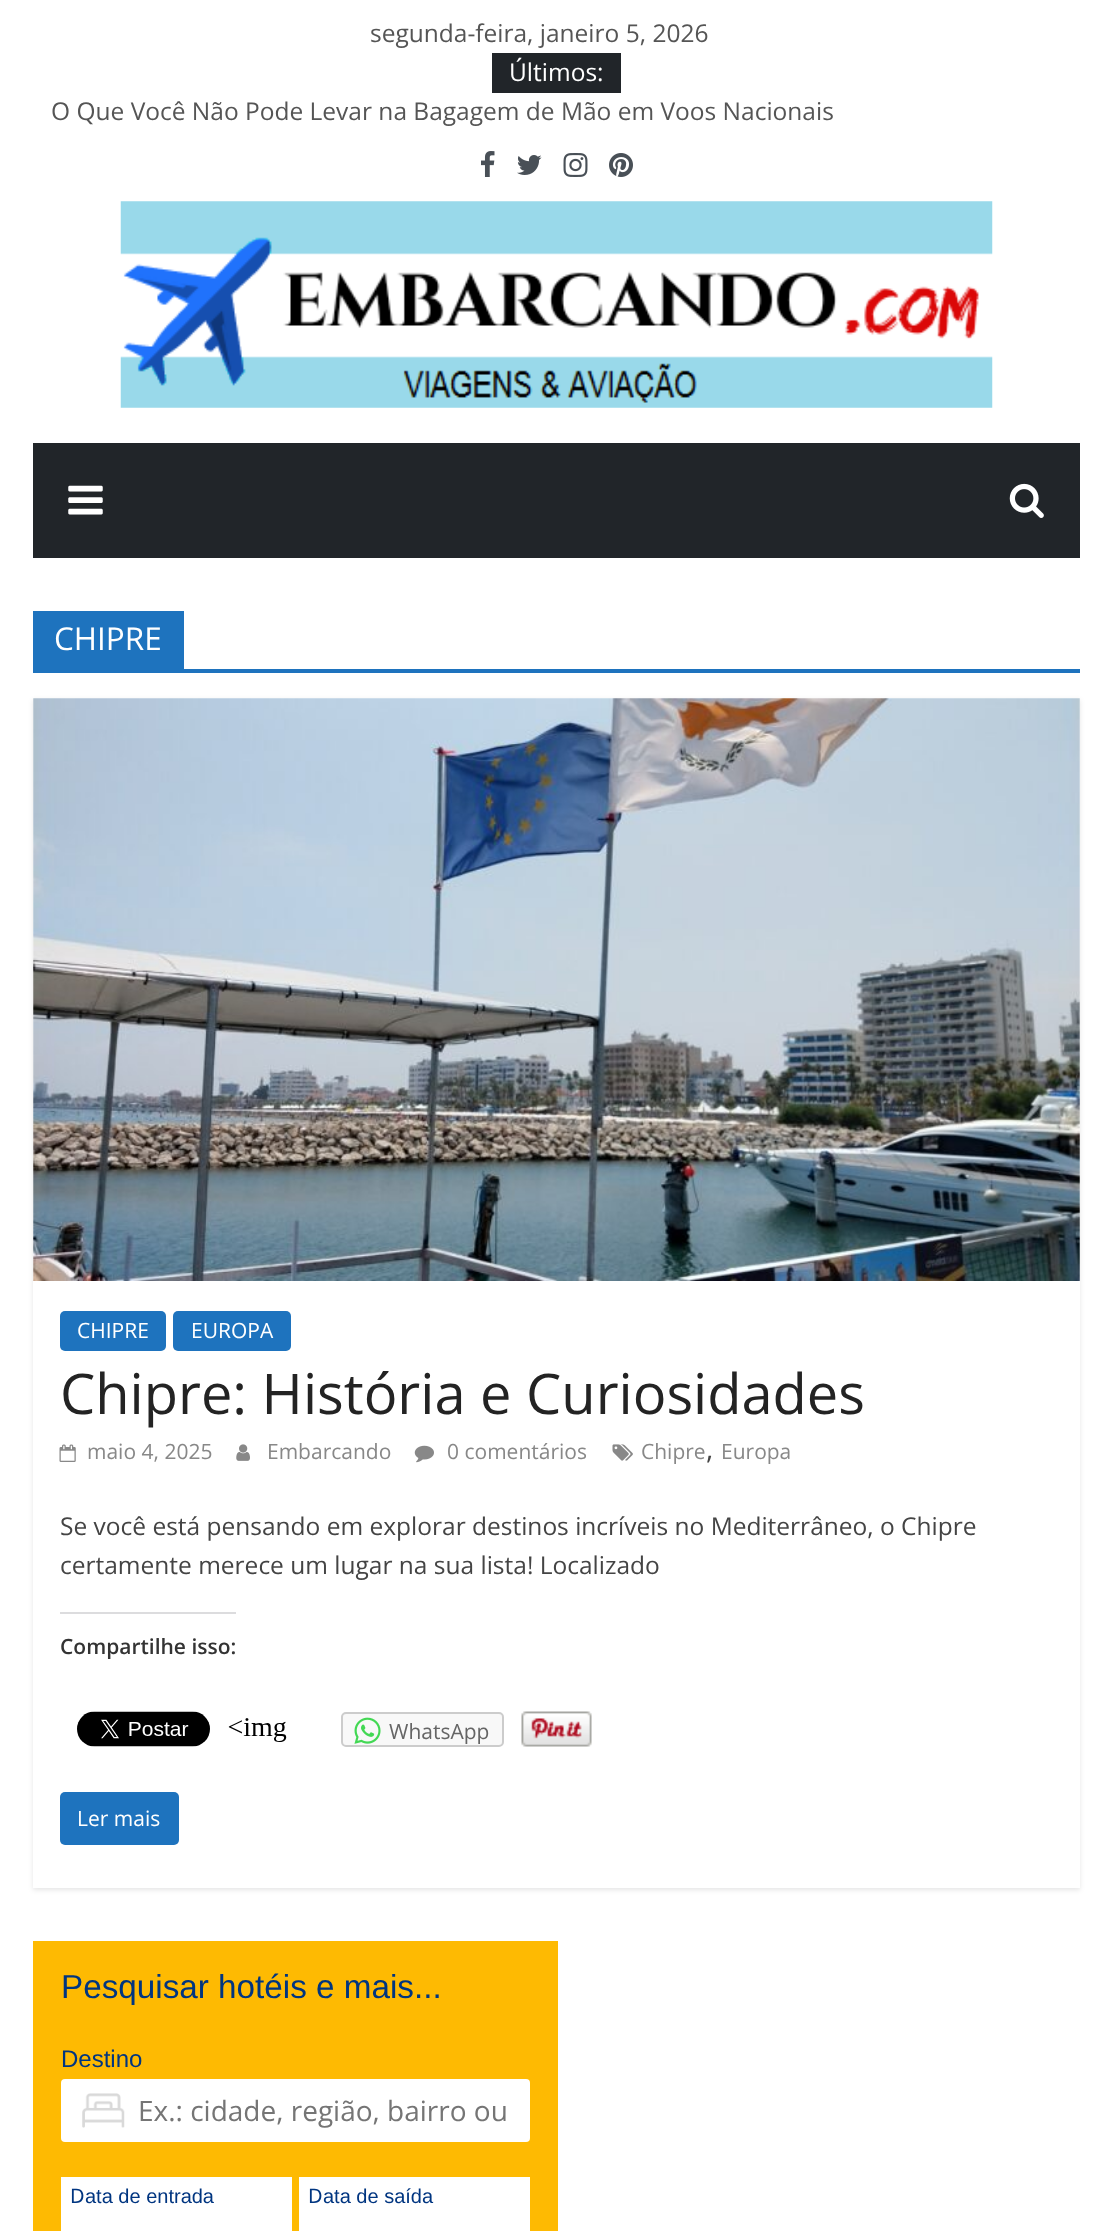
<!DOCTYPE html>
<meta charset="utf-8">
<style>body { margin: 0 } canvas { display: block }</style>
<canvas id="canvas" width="1113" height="2231"></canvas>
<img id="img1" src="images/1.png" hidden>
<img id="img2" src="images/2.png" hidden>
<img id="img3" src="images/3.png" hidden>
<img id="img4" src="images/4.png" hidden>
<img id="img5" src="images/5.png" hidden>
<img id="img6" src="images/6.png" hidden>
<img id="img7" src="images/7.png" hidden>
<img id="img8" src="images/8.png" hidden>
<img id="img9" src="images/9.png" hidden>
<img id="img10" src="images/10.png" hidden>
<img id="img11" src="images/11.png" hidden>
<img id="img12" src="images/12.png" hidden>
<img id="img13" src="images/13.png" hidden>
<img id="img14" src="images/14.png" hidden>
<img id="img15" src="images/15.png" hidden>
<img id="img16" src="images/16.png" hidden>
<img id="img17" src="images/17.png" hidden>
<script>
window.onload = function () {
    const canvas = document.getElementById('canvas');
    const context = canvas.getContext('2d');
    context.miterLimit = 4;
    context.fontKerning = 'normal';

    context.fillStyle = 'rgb(255, 255, 255)';
    context.fillRect(0, 0, 1113, 2231);
    context.fillStyle = 'rgb(33, 37, 41)';
    context.fillRect(492, 53, 129, 40);
    context.drawImage(document.getElementById('img1'), 481, 151, 14, 26);
    context.drawImage(document.getElementById('img2'), 517, 155, 25, 20);
    context.drawImage(document.getElementById('img3'), 563, 153, 25, 24);
    context.drawImage(document.getElementById('img4'), 609, 153, 24, 24);
    context.drawImage(document.getElementById('img5'), 120, 201, 873, 207);
    context.fillRect(33, 443, 1047, 115);
    context.drawImage(document.getElementById('img6'), 68, 485, 35, 30);
    context.drawImage(document.getElementById('img7'), 1009, 483, 35, 35);
    context.fillStyle = 'rgb(30, 115, 190)';
    context.fillRect(33, 669, 1047, 4);
    context.fillRect(33, 611, 151, 58);
    context.save();
    context.beginPath();
    context.moveTo(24, 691);
    context.lineTo(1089, 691);
    context.lineTo(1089, 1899);
    context.lineTo(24, 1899);
    context.closePath();
    context.moveTo(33, 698);
    context.lineTo(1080, 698);
    context.lineTo(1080, 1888);
    context.lineTo(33, 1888);
    context.closePath();
    context.clip('evenodd');
    context.fillStyle = 'rgba(0, 0, 0, 0.1)';
    context.filter = 'blur(2.5px)';
    context.beginPath();
    context.rect(33, 700, 1047, 1190);
    context.fill();
    context.filter = 'none';
    context.restore();
    context.drawImage(document.getElementById('img8'), 33, 698, 1047, 583);
    context.beginPath();
    context.roundRect(60, 1311, 106, 40, 5);
    context.fill();
    context.beginPath();
    context.roundRect(173, 1311, 118, 40, 5);
    context.fill();
    context.drawImage(document.getElementById('img9'), 59, 1444, 17, 18);
    context.drawImage(document.getElementById('img10'), 236, 1444, 14, 17);
    context.drawImage(document.getElementById('img11'), 414, 1445, 20, 18);
    context.drawImage(document.getElementById('img12'), 612, 1444, 21, 17);
    context.fillStyle = 'rgb(220, 220, 222)';
    context.fillRect(60, 1612, 176, 2);
    context.drawImage(document.getElementById('img13'), 77, 1711, 133, 36);
    context.drawImage(document.getElementById('img14'), 228, 1718, 59, 24);
    context.fillStyle = 'rgb(248, 248, 248)';
    context.beginPath();
    context.roundRect(342, 1713, 161, 33, 4);
    context.fill();
    context.strokeStyle = 'rgb(204, 204, 204)';
    context.lineWidth = 2;
    context.stroke();
    context.drawImage(document.getElementById('img15'), 354, 1717, 27, 27);
    context.drawImage(document.getElementById('img16'), 521, 1711, 71, 36);
    context.fillStyle = 'rgb(30, 115, 190)';
    context.beginPath();
    context.roundRect(60, 1792, 119, 53, 5);
    context.fill();
    context.fillStyle = 'rgb(254, 186, 2)';
    context.fillRect(33, 1941, 525, 290);
    context.fillStyle = 'rgb(255, 255, 255)';
    context.beginPath();
    context.roundRect(61, 2079, 469, 63, 4);
    context.fill();
    context.drawImage(document.getElementById('img17'), 82, 2093, 43, 35);
    context.fillRect(61, 2177, 231, 54);
    context.fillRect(299, 2177, 231, 54);
    context.font = '24.5px Open Sans';
    context.fillStyle = 'rgb(85, 85, 85)';
    context.fillText('segunda-feira, janeiro 5, 2026', 370, 42);
    context.fillStyle = 'rgb(255, 255, 255)';
    context.fillText('Últimos:', 509, 81);
    context.fillStyle = 'rgb(85, 85, 85)';
    context.fillText('O Que Você Não Pode Levar na Bagagem de Mão em Voos Nacionais', 51, 120);
    context.font = '31.5px Open Sans';
    context.fillStyle = 'rgb(255, 255, 255)';
    context.fillText('CHIPRE', 54, 650);
    context.font = '21px Open Sans';
    context.fillText('CHIPRE', 77, 1338);
    context.fillText('EUROPA', 191, 1338);
    context.font = '56px Open Sans';
    context.fillStyle = 'rgb(35, 35, 35)';
    context.fillText('Chipre: História e Curiosidades', 60, 1414);
    context.font = '21px Open Sans';
    context.fillStyle = 'rgb(136, 136, 136)';
    context.fillText('maio 4, 2025', 87, 1459);
    context.fillText('Embarcando', 267, 1459);
    context.fillText('0 comentários', 447, 1459);
    context.fillText('Chipre', 641, 1459);
    context.font = '28px Open Sans';
    context.fillStyle = 'rgb(68, 68, 68)';
    context.fillText(',', 706, 1459);
    context.font = '21px Open Sans';
    context.fillStyle = 'rgb(136, 136, 136)';
    context.fillText('Europa', 721, 1459);
    context.font = '24.5px Open Sans';
    context.fillStyle = 'rgb(68, 68, 68)';
    context.fillText('Se você está pensando em explorar destinos incríveis no Mediterrâneo, o Chipre', 60, 1535);
    context.fillText('certamente merece um lugar na sua lista! Localizado', 60, 1574);
    context.font = '600 21px Open Sans';
    context.fillStyle = 'rgb(51, 51, 51)';
    context.fillText('Compartilhe isso:', 60, 1654);
    context.font = '21px Open Sans';
    context.fillStyle = 'rgb(101, 101, 101)';
    context.fillText('WhatsApp', 389, 1739);
    context.fillStyle = 'rgb(255, 255, 255)';
    context.fillText('Ler mais', 77, 1826);
    context.font = '33.25px Liberation Sans';
    context.fillStyle = 'rgb(0, 53, 128)';
    context.fillText('Pesquisar hotéis e mais...', 61, 1998);
    context.font = '24px Liberation Sans';
    context.fillText('Destino', 61, 2067);
    context.font = '28px Open Sans';
    context.fillStyle = 'rgb(117, 117, 117)';
    context.fillText('Ex.: cidade, região, bairro ou', 138, 2121);
    context.font = '20px Noto Sans';
    context.fillStyle = 'rgb(0, 53, 128)';
    context.fillText('D', 70, 2203);
    context.font = '20px Liberation Sans';
    context.fillText('ata de entrada', 85, 2203);
    context.font = '20px Noto Sans';
    context.fillText('D', 308, 2203);
    context.font = '20px Liberation Sans';
    context.fillText('ata de saída', 323, 2203);
};
</script>
